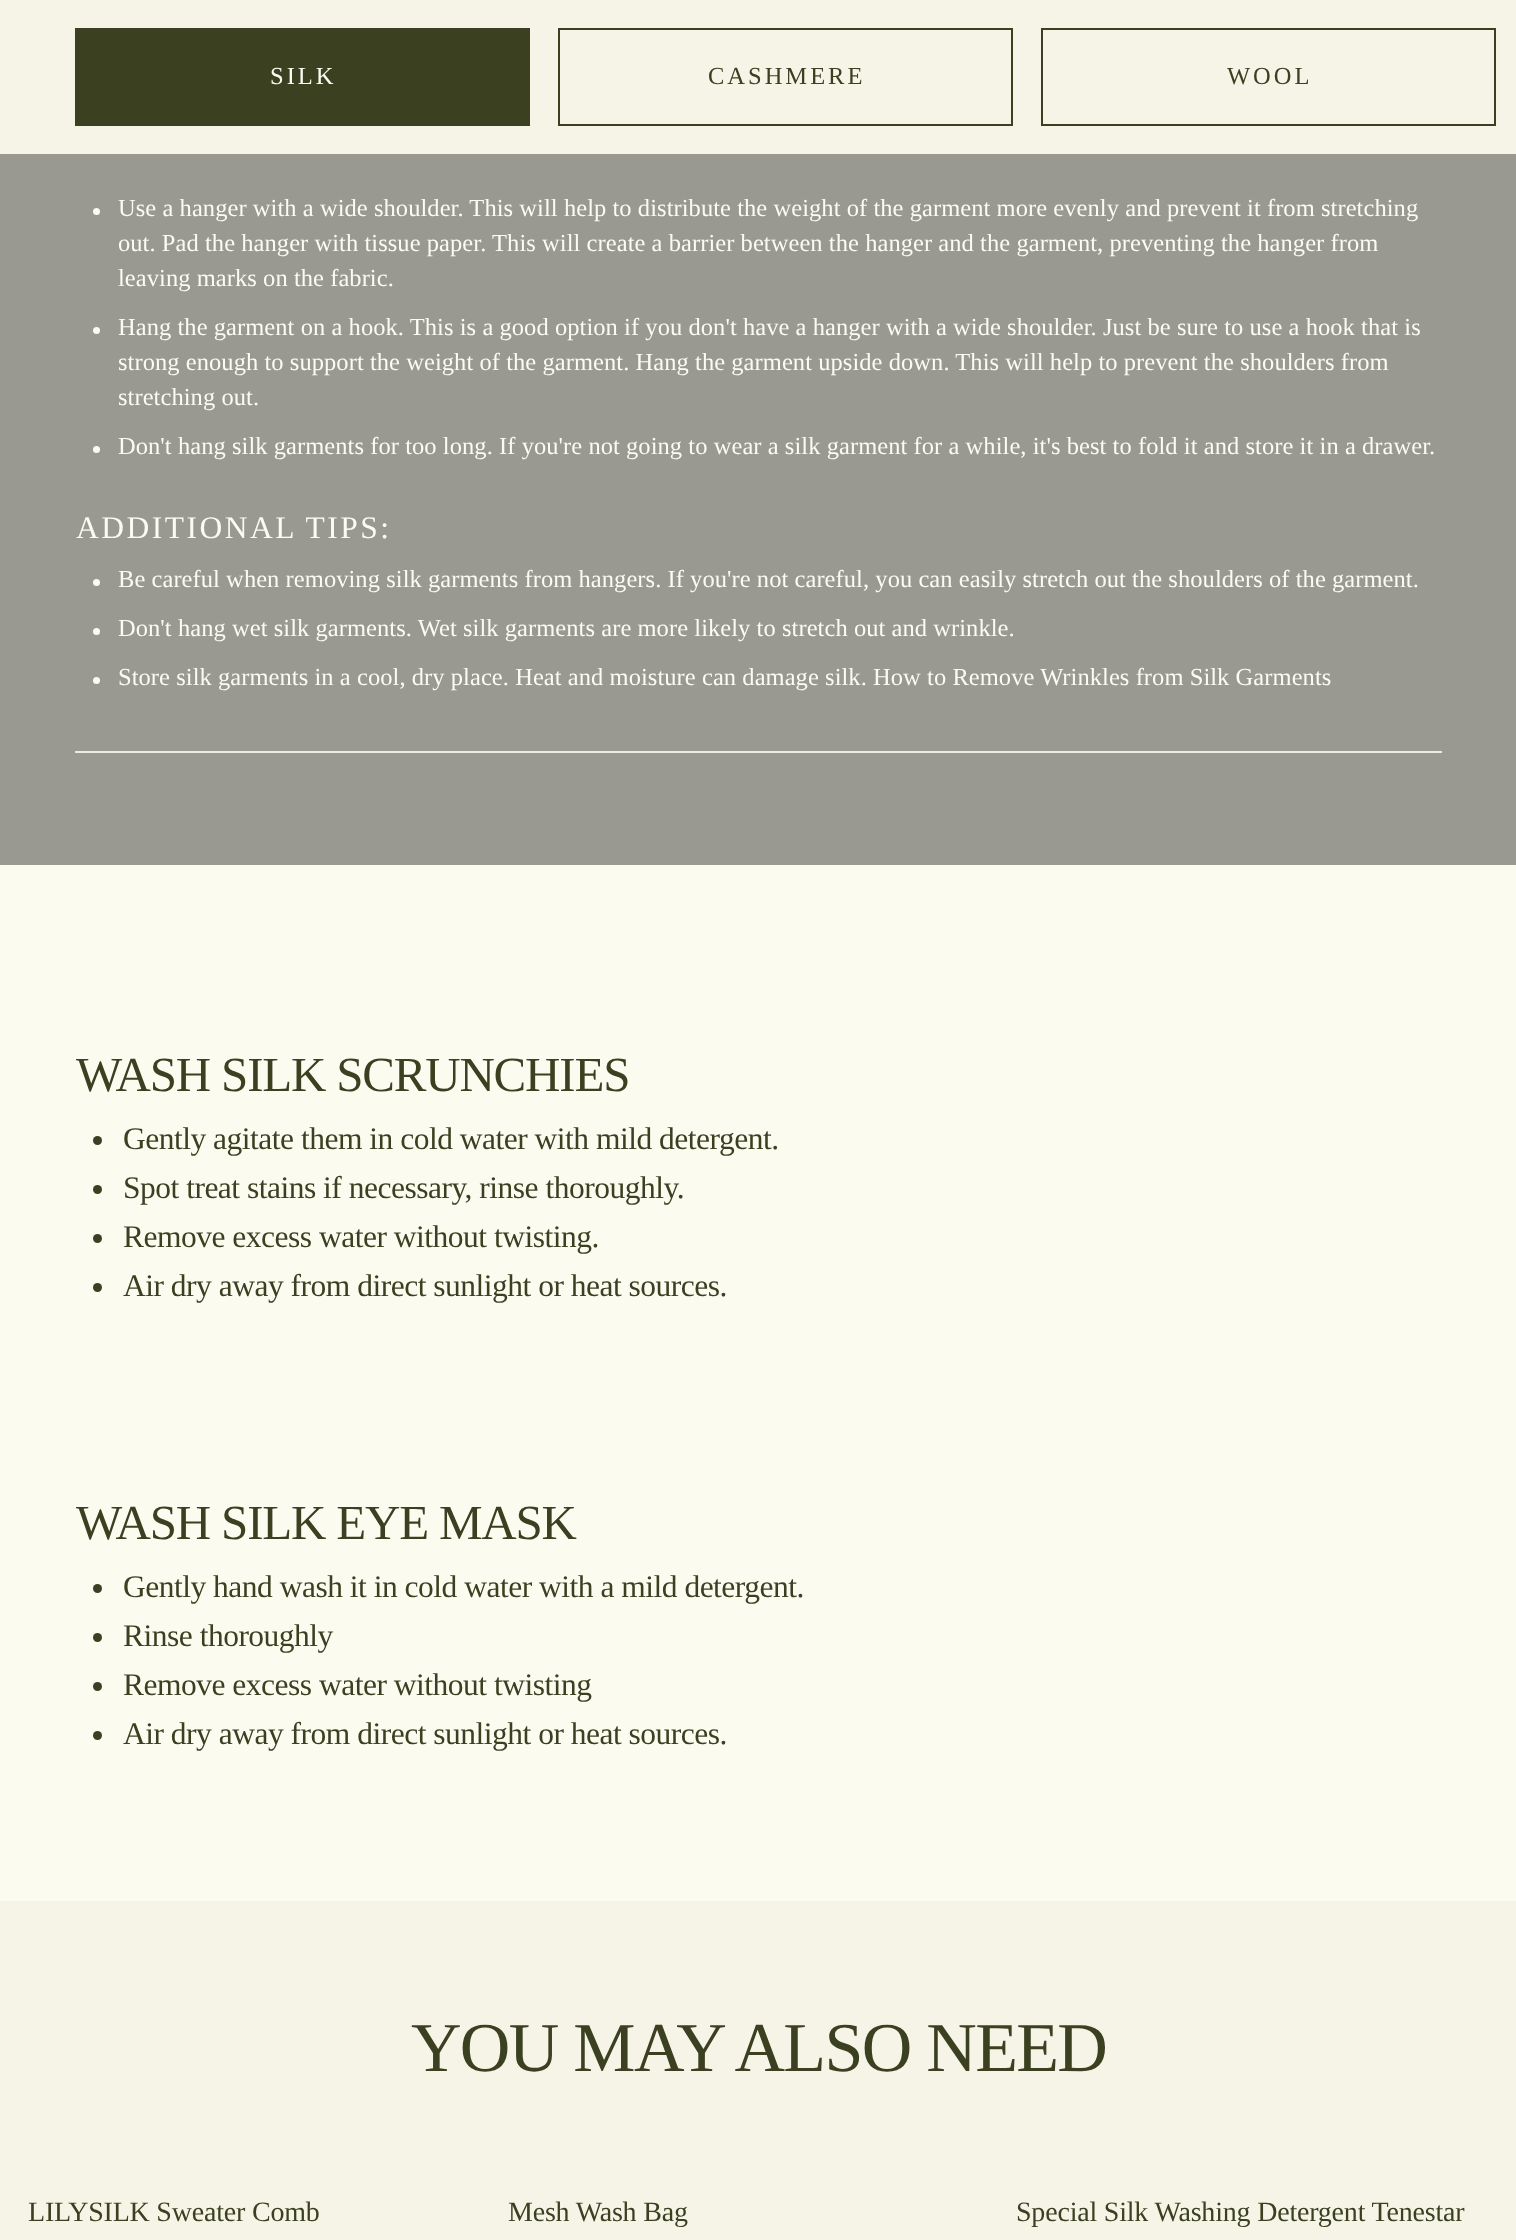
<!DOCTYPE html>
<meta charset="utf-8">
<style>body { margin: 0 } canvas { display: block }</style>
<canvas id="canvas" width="1516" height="2240"></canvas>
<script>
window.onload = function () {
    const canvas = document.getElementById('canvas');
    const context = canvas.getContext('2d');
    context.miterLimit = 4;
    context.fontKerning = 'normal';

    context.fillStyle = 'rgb(252, 251, 240)';
    context.fillRect(0, 0, 1516, 2240);
    context.fillStyle = 'rgb(246, 244, 231)';
    context.fillRect(0, 0, 1516, 154);
    context.fillStyle = 'rgb(59, 64, 33)';
    context.fillRect(75, 28, 455, 98);
    context.strokeStyle = 'rgb(59, 64, 33)';
    context.lineWidth = 2;
    context.strokeRect(559, 29, 453, 96);
    context.strokeRect(1042, 29, 453, 96);
    context.fillStyle = 'rgb(153, 152, 145)';
    context.fillRect(0, 154, 1516, 711);
    context.fillStyle = 'rgb(237, 235, 223)';
    context.fillRect(75, 751, 1367, 2);
    context.fillStyle = 'rgb(252, 251, 240)';
    context.beginPath();
    context.arc(96.5, 211.5, 3.5, 0, 2 * Math.PI);
    context.fill();
    context.beginPath();
    context.arc(96.5, 330.5, 3.5, 0, 2 * Math.PI);
    context.fill();
    context.beginPath();
    context.arc(96.5, 449.5, 3.5, 0, 2 * Math.PI);
    context.fill();
    context.beginPath();
    context.arc(96.5, 582.5, 3.5, 0, 2 * Math.PI);
    context.fill();
    context.beginPath();
    context.arc(96.5, 631.5, 3.5, 0, 2 * Math.PI);
    context.fill();
    context.beginPath();
    context.arc(96.5, 680.5, 3.5, 0, 2 * Math.PI);
    context.fill();
    context.fillStyle = 'rgb(59, 64, 33)';
    context.beginPath();
    context.arc(97.5, 1140.5, 4.5, 0, 2 * Math.PI);
    context.fill();
    context.beginPath();
    context.arc(97.5, 1189.5, 4.5, 0, 2 * Math.PI);
    context.fill();
    context.beginPath();
    context.arc(97.5, 1238.5, 4.5, 0, 2 * Math.PI);
    context.fill();
    context.beginPath();
    context.arc(97.5, 1287.5, 4.5, 0, 2 * Math.PI);
    context.fill();
    context.beginPath();
    context.arc(97.5, 1588.5, 4.5, 0, 2 * Math.PI);
    context.fill();
    context.beginPath();
    context.arc(97.5, 1637.5, 4.5, 0, 2 * Math.PI);
    context.fill();
    context.beginPath();
    context.arc(97.5, 1686.5, 4.5, 0, 2 * Math.PI);
    context.fill();
    context.beginPath();
    context.arc(97.5, 1735.5, 4.5, 0, 2 * Math.PI);
    context.fill();
    context.fillStyle = 'rgb(246, 244, 231)';
    context.fillRect(0, 1901, 1516, 339);
    context.letterSpacing = '3px';
    context.font = '24.5px Liberation Serif';
    context.fillStyle = 'rgb(252, 251, 240)';
    context.fillText('SILK', 270, 84);
    context.fillStyle = 'rgb(59, 64, 33)';
    context.fillText('CASHMERE', 708, 84);
    context.fillText('WOOL', 1227, 84);
    context.letterSpacing = '0.06px';
    context.fillStyle = 'rgb(252, 251, 240)';
    context.fillText('Use a hanger with a wide shoulder. This will help to distribute the weight of the garment more evenly and prevent it from stretching', 118, 216);
    context.fillText('out. Pad the hanger with tissue paper. This will create a barrier between the hanger and the garment, preventing the hanger from', 118, 251);
    context.fillText('leaving marks on the fabric.', 118, 286);
    context.fillText('Hang the garment on a hook. This is a good option if you don\'t have a hanger with a wide shoulder. Just be sure to use a hook that is', 118, 335);
    context.fillText('strong enough to support the weight of the garment. Hang the garment upside down. This will help to prevent the shoulders from', 118, 370);
    context.fillText('stretching out.', 118, 405);
    context.fillText('Don\'t hang silk garments for too long. If you\'re not going to wear a silk garment for a while, it\'s best to fold it and store it in a drawer.', 118, 454);
    context.letterSpacing = '2.5px';
    context.font = '31.5px Liberation Serif';
    context.fillText('ADDITIONAL TIPS:', 76, 538);
    context.letterSpacing = '0.06px';
    context.font = '24.5px Liberation Serif';
    context.fillText('Be careful when removing silk garments from hangers. If you\'re not careful, you can easily stretch out the shoulders of the garment.', 118, 587);
    context.fillText('Don\'t hang wet silk garments. Wet silk garments are more likely to stretch out and wrinkle.', 118, 636);
    context.fillText('Store silk garments in a cool, dry place. Heat and moisture can damage silk. How to Remove Wrinkles from Silk Garments', 118, 685);
    context.letterSpacing = '-1.2px';
    context.font = '49px Liberation Serif';
    context.fillStyle = 'rgb(59, 64, 33)';
    context.fillText('WASH SILK SCRUNCHIES', 76, 1091);
    context.letterSpacing = '-0.5px';
    context.font = '31.5px Liberation Serif';
    context.fillText('Gently agitate them in cold water with mild detergent.', 123, 1149);
    context.fillText('Spot treat stains if necessary, rinse thoroughly.', 123, 1198);
    context.fillText('Remove excess water without twisting.', 123, 1247);
    context.fillText('Air dry away from direct sunlight or heat sources.', 123, 1296);
    context.letterSpacing = '-1.2px';
    context.font = '49px Liberation Serif';
    context.fillText('WASH SILK EYE MASK', 76, 1539);
    context.letterSpacing = '-0.5px';
    context.font = '31.5px Liberation Serif';
    context.fillText('Gently hand wash it in cold water with a mild detergent.', 123, 1597);
    context.fillText('Rinse thoroughly', 123, 1646);
    context.fillText('Remove excess water without twisting', 123, 1695);
    context.fillText('Air dry away from direct sunlight or heat sources.', 123, 1744);
    context.letterSpacing = '-1.7px';
    context.font = '70px Liberation Serif';
    context.fillText('YOU MAY ALSO NEED', 411, 2071);
    context.letterSpacing = '-0.2px';
    context.font = '28px Liberation Serif';
    context.fillText('LILYSILK Sweater Comb', 28, 2221);
    context.fillText('Mesh Wash Bag', 508, 2221);
    context.fillText('Special Silk Washing Detergent Tenestar', 1016, 2221);
};
</script>
